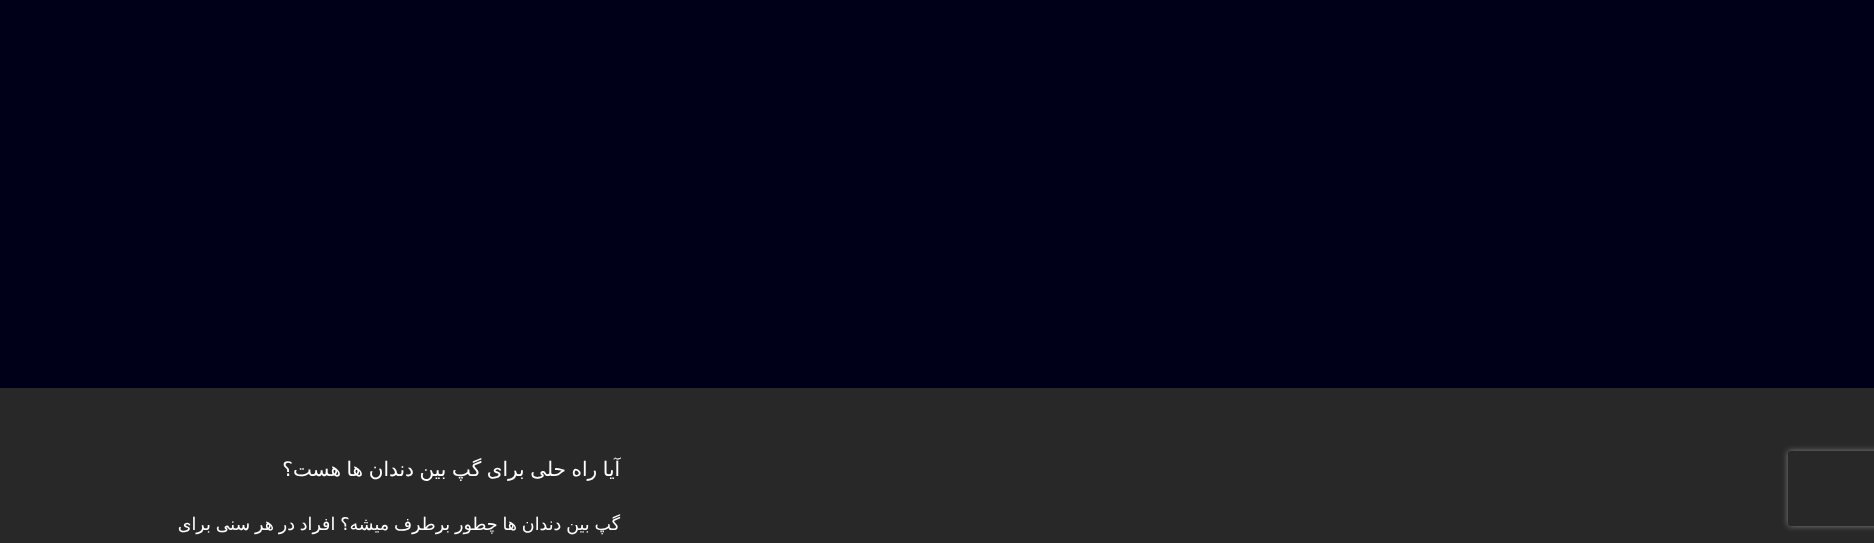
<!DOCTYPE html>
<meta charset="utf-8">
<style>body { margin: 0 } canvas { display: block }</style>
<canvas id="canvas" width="1874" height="543"></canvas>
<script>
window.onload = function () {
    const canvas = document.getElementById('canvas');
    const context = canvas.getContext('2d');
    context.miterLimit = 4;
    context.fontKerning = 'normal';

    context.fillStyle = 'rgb(40, 40, 40)';
    context.fillRect(0, 0, 1874, 543);
    context.save();
    context.beginPath();
    context.moveTo(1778, 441);
    context.lineTo(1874, 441);
    context.lineTo(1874, 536);
    context.lineTo(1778, 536);
    context.closePath();
    context.moveTo(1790.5, 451);
    context.lineTo(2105.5, 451);
    context.bezierCurveTo(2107, 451, 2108, 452, 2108, 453.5);
    context.lineTo(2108, 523.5);
    context.bezierCurveTo(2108, 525, 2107, 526, 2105.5, 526);
    context.lineTo(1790.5, 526);
    context.bezierCurveTo(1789, 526, 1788, 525, 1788, 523.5);
    context.lineTo(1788, 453.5);
    context.bezierCurveTo(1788, 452, 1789, 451, 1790.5, 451);
    context.closePath();
    context.clip('evenodd');
    context.fillStyle = 'rgb(128, 128, 128)';
    context.filter = 'blur(3px)';
    context.beginPath();
    context.roundRect(1788, 451, 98, 75, 2.5);
    context.fill();
    context.filter = 'none';
    context.restore();
    context.fillStyle = 'rgb(0, 1, 25)';
    context.fillRect(0, 0, 1874, 388);
    context.wordSpacing = '-0.75px';
    context.direction = 'rtl';
    context.font = '20px DejaVu Sans';
    context.fillStyle = 'rgb(255, 255, 255)';
    context.fillText('آیا راه حلی برای گپ بین دندان ها هست؟', 620, 476);
    context.font = '17.5px DejaVu Sans';
    context.fillText('گپ بین دندان ها چطور برطرف میشه؟ افراد در هر سنی برای', 620, 530);
};
</script>
